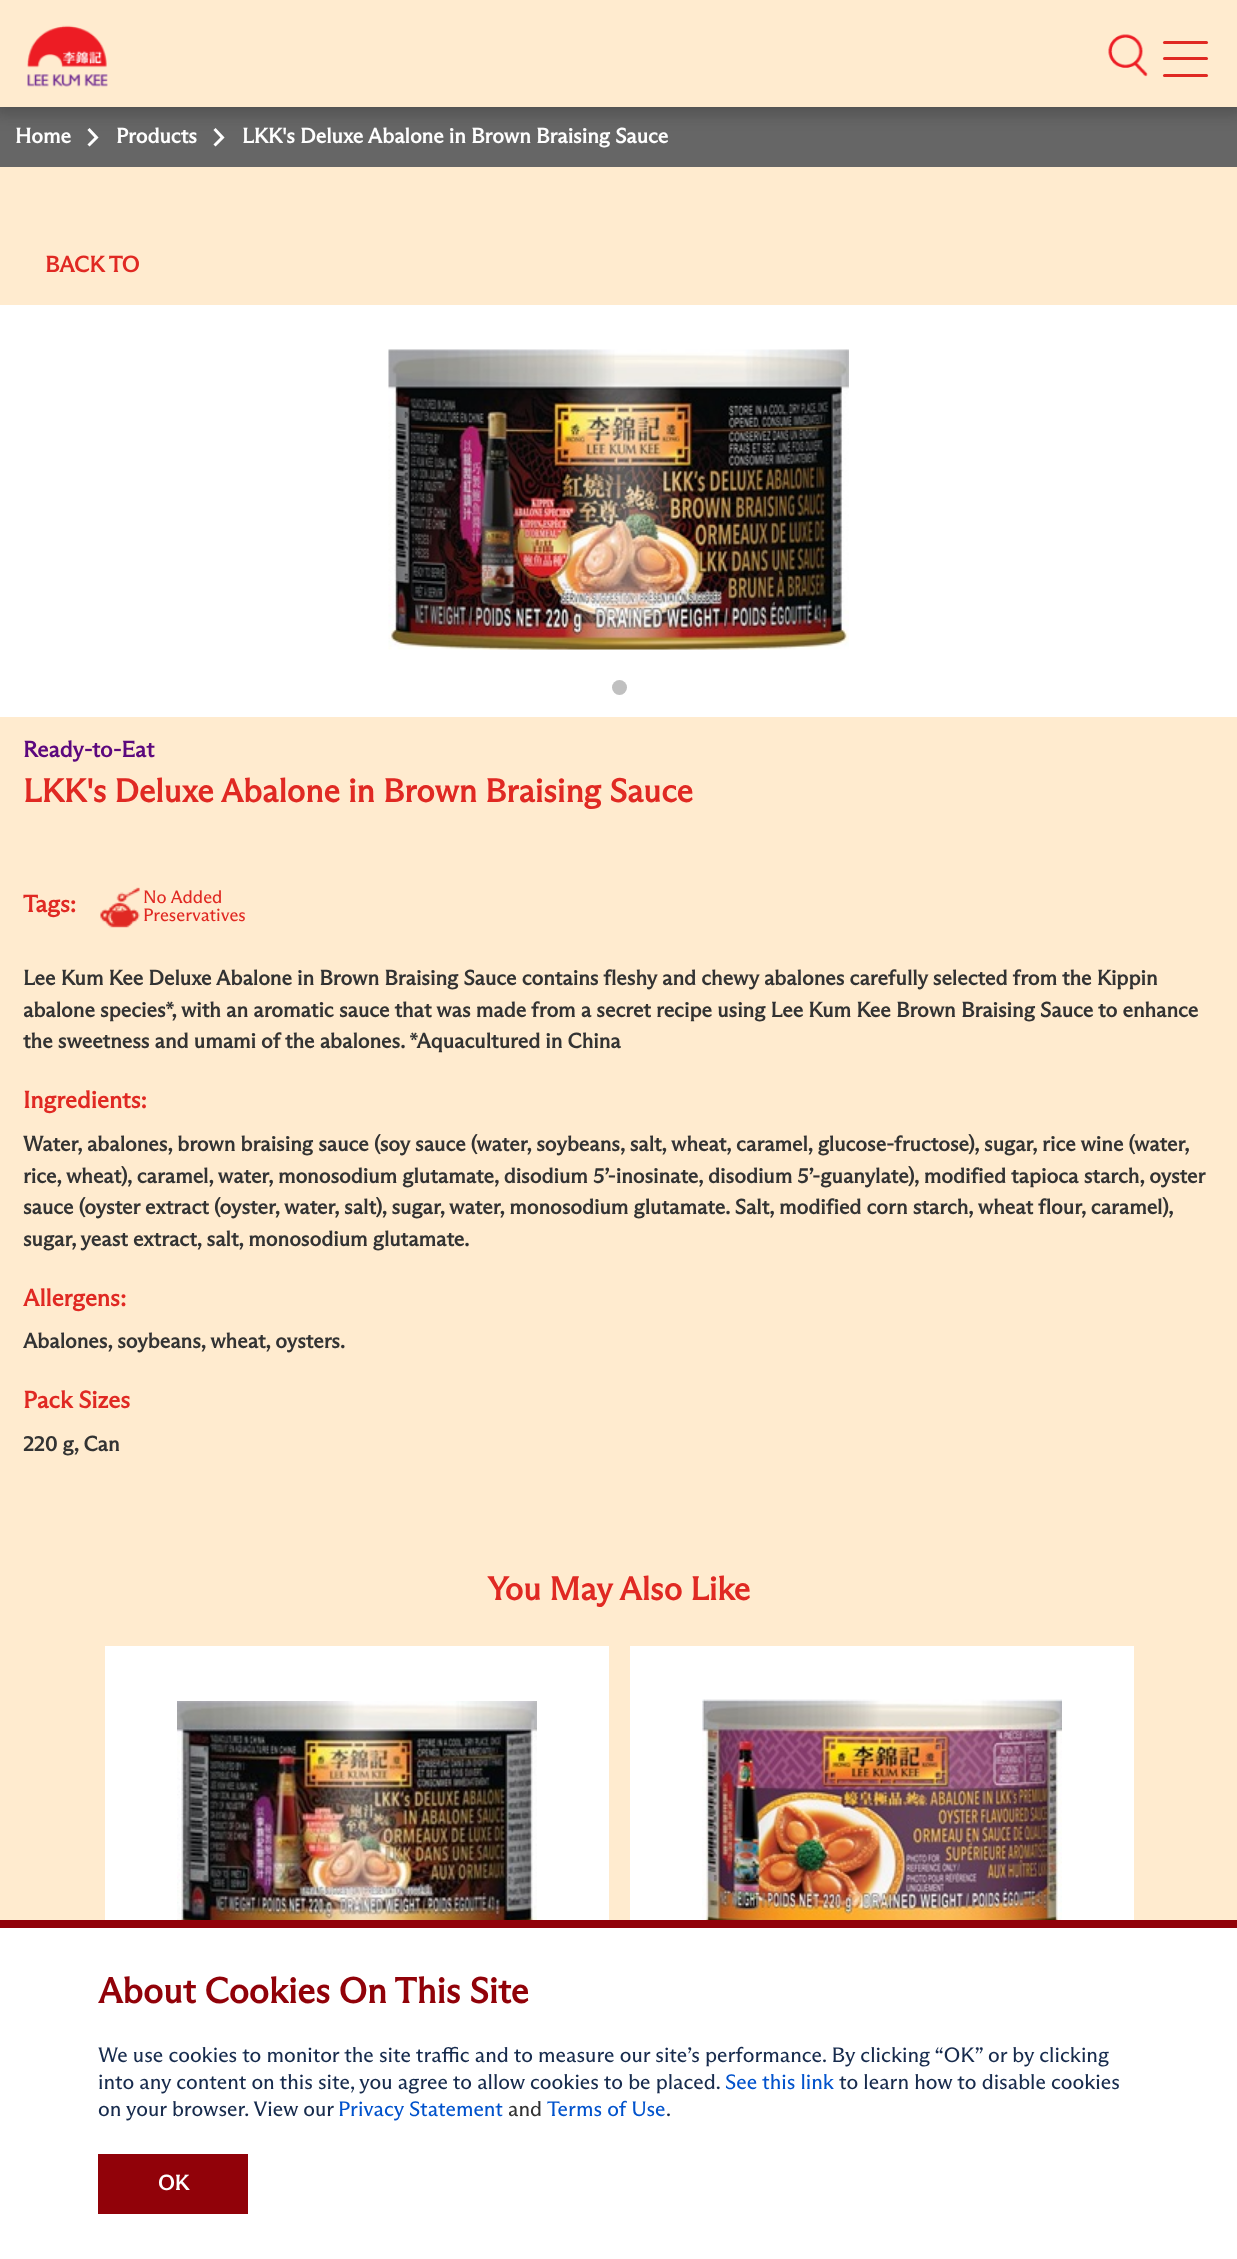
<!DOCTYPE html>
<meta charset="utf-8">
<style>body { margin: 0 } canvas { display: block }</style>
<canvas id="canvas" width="1237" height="2259"></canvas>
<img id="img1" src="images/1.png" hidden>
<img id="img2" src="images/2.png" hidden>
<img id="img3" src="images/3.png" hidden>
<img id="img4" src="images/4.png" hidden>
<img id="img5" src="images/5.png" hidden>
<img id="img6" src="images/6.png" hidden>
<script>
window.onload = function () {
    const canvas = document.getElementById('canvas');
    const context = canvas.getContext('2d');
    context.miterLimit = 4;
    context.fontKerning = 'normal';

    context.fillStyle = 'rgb(255, 235, 207)';
    context.fillRect(0, 0, 1237, 2259);
    context.fillStyle = 'rgb(102, 102, 102)';
    context.fillRect(0, 107, 1237, 60);
    context.beginPath();
    context.moveTo(88.5, 129);
    context.lineTo(96.5, 137.5);
    context.lineTo(88.5, 145.5);
    context.strokeStyle = 'rgb(255, 255, 255)';
    context.lineWidth = 3;
    context.stroke();
    context.beginPath();
    context.moveTo(214.5, 129);
    context.lineTo(222.5, 137.5);
    context.lineTo(214.5, 145.5);
    context.stroke();
    context.fillStyle = 'rgba(51, 51, 51, 0.4)';
    context.filter = 'blur(7.5px)';
    context.beginPath();
    context.rect(-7, -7, 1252, 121);
    context.fill();
    context.filter = 'none';
    context.fillStyle = 'rgb(255, 235, 207)';
    context.fillRect(0, 0, 1237, 107);
    context.drawImage(document.getElementById('img1'), 27, 25, 81, 62);
    context.drawImage(document.getElementById('img2'), 1108, 34, 40, 43);
    context.fillStyle = 'rgb(224, 41, 35)';
    context.beginPath();
    context.roundRect(1163, 57, 45, 3, 1.5);
    context.fill();
    context.beginPath();
    context.roundRect(1163, 41, 45, 3, 1.5);
    context.fill();
    context.beginPath();
    context.roundRect(1163, 74, 45, 3, 1.5);
    context.fill();
    context.fillStyle = 'rgb(255, 255, 255)';
    context.fillRect(0, 305, 1237, 412);
    context.drawImage(document.getElementById('img3'), 388, 349, 461, 301);
    context.fillStyle = 'rgb(192, 192, 192)';
    context.beginPath();
    context.arc(619.5, 687.5, 7.5, 0, 2 * Math.PI);
    context.fill();
    context.drawImage(document.getElementById('img4'), 100, 887, 40, 41);
    context.fillStyle = 'rgb(255, 255, 255)';
    context.fillRect(105, 1646, 504, 274);
    context.drawImage(document.getElementById('img5'), 177, 1701, 360, 219);
    context.fillRect(630, 1646, 504, 274);
    context.drawImage(document.getElementById('img6'), 702, 1699, 360, 221);
    context.fillRect(0, 1928, 1237, 331);
    context.fillStyle = 'rgb(145, 2, 9)';
    context.fillRect(0, 1920, 1237, 8);
    context.fillRect(98, 2154, 150, 60);
    context.font = 'bold 21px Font';
    context.fillStyle = 'rgb(254, 254, 254)';
    context.fillText('Home', 15, 143);
    context.fillText('Products', 116, 143);
    context.fillText('LKK\'s Deluxe Abalone in Brown Braising Sauce', 242, 143);
    context.font = 'bold 22.5px Font';
    context.fillStyle = 'rgb(224, 41, 35)';
    context.fillText('BACK TO', 45, 272);
    context.fillStyle = 'rgb(92, 8, 126)';
    context.fillText('Ready-to-Eat', 23, 757);
    context.font = 'bold 33px Font';
    context.fillStyle = 'rgb(224, 41, 35)';
    context.fillText('LKK\'s Deluxe Abalone in Brown Braising Sauce', 23, 802);
    context.font = 'bold 24px Font';
    context.fillText('Tags:', 23, 912);
    context.font = '18px Font';
    context.fillText('No Added', 143, 903);
    context.fillText('Preservatives', 143, 921);
    context.font = 'bold 21px Font';
    context.fillStyle = 'rgb(51, 51, 51)';
    context.fillText('Lee Kum Kee Deluxe Abalone in Brown Braising Sauce contains fleshy and chewy abalones carefully selected from the Kippin', 23, 985);
    context.fillText('abalone species*, with an aromatic sauce that was made from a secret recipe using Lee Kum Kee Brown Braising Sauce to enhance', 23, 1017);
    context.fillText('the sweetness and umami of the abalones. *Aquacultured in China', 23, 1048);
    context.font = 'bold 24px Font';
    context.fillStyle = 'rgb(224, 41, 35)';
    context.fillText('Ingredients:', 23, 1108);
    context.font = 'bold 21px Font';
    context.fillStyle = 'rgb(51, 51, 51)';
    context.fillText('Water, abalones, brown braising sauce (soy sauce (water, soybeans, salt, wheat, caramel, glucose-fructose), sugar, rice wine (water,', 23, 1151);
    context.fillText('rice, wheat), caramel, water, monosodium glutamate, disodium 5’-inosinate, disodium 5’-guanylate), modified tapioca starch, oyster', 23, 1183);
    context.fillText('sauce (oyster extract (oyster, water, salt), sugar, water, monosodium glutamate. Salt, modified corn starch, wheat flour, caramel),', 23, 1214);
    context.fillText('sugar, yeast extract, salt, monosodium glutamate.', 23, 1246);
    context.font = 'bold 24px Font';
    context.fillStyle = 'rgb(224, 41, 35)';
    context.fillText('Allergens:', 23, 1306);
    context.font = 'bold 21px Font';
    context.fillStyle = 'rgb(51, 51, 51)';
    context.fillText('Abalones, soybeans, wheat, oysters.', 23, 1348);
    context.font = 'bold 24px Font';
    context.fillStyle = 'rgb(224, 41, 35)';
    context.fillText('Pack Sizes', 23, 1408);
    context.font = 'bold 21px Font';
    context.fillStyle = 'rgb(51, 51, 51)';
    context.fillText('220 g, Can', 23, 1451);
    context.font = 'bold 33px Font';
    context.fillStyle = 'rgb(224, 41, 35)';
    context.fillText('You May Also Like', 487, 1600);
    context.font = 'bold 36px Font';
    context.fillStyle = 'rgb(145, 2, 9)';
    context.fillText('About Cookies On This Site', 98, 2003);
    context.font = '21px Font';
    context.fillStyle = 'rgb(23, 43, 77)';
    context.fillText('We use cookies to monitor the site traffic and to measure our site’s performance. By clicking “OK” or by clicking', 98, 2062);
    context.fillText('into any content on this site, you agree to allow cookies to be placed.', 98, 2089);
    context.fillStyle = 'rgb(0, 82, 204)';
    context.fillText('See this link', 725, 2089);
    context.fillStyle = 'rgb(23, 43, 77)';
    context.fillText('to learn how to disable cookies', 839, 2089);
    context.fillText('on your browser. View our', 98, 2116);
    context.fillStyle = 'rgb(0, 82, 204)';
    context.fillText('Privacy Statement', 338, 2116);
    context.fillStyle = 'rgb(51, 51, 51)';
    context.fillText('and', 508, 2116);
    context.fillStyle = 'rgb(0, 82, 204)';
    context.fillText('Terms of Use', 547, 2116);
    context.fillStyle = 'rgb(23, 43, 77)';
    context.fillText('.', 666, 2116);
    context.font = 'bold 21px Font';
    context.fillStyle = 'rgb(254, 254, 254)';
    context.fillText('OK', 158, 2190);
};
</script>
